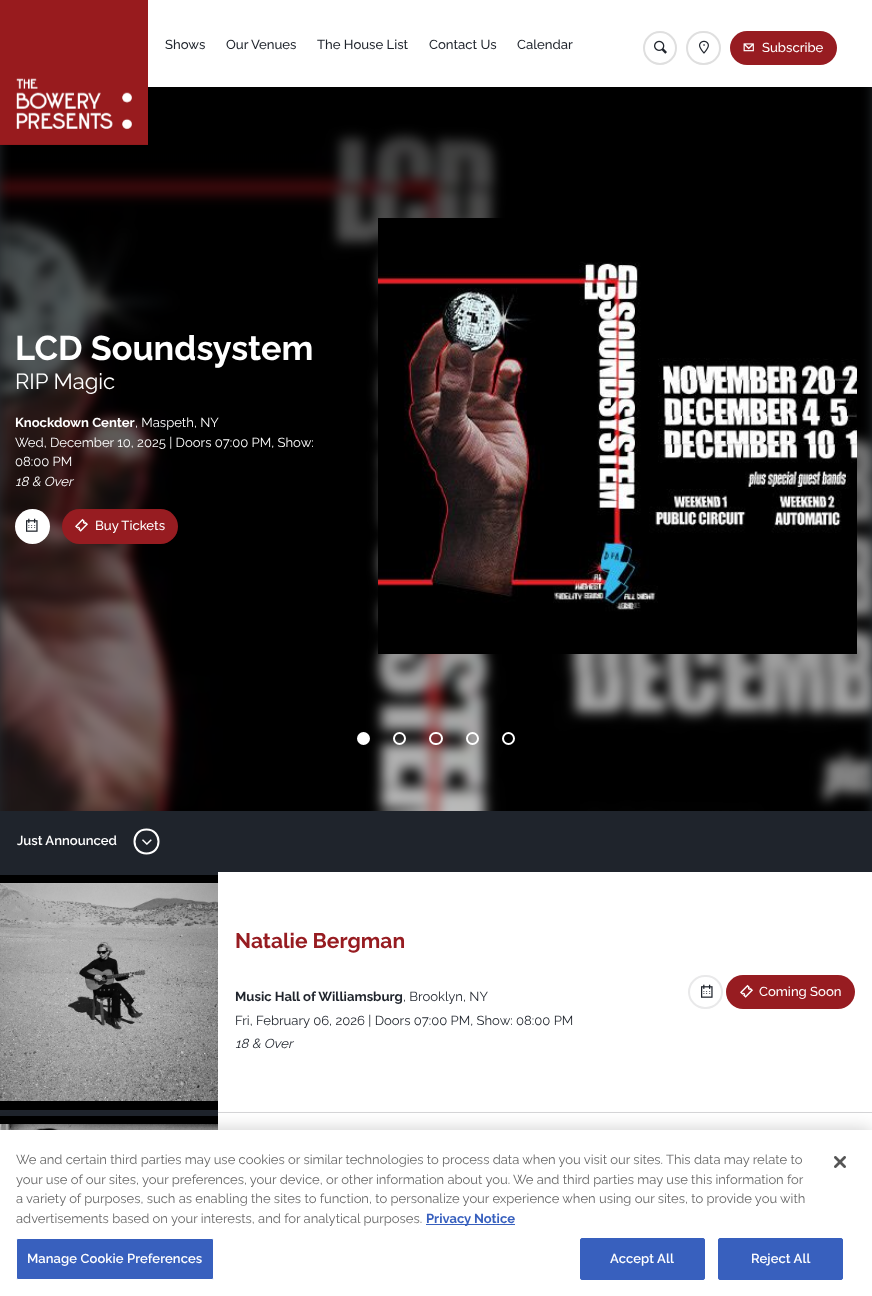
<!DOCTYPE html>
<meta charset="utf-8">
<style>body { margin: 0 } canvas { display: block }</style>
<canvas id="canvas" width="872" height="1296"></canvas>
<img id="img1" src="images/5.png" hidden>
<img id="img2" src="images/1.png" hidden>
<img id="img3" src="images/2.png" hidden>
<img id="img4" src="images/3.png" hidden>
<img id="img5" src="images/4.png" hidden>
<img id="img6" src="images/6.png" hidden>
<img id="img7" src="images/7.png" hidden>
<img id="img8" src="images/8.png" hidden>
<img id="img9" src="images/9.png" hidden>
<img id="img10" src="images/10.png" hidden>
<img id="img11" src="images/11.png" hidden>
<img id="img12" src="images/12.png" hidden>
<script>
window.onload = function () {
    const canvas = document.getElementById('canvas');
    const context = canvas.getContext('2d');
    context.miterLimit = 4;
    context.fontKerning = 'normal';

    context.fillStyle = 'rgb(35, 39, 43)';
    context.fillRect(0, 0, 872, 1296);
    context.fillStyle = 'rgb(255, 255, 255)';
    context.fillRect(148, 0, 724, 87);
    context.drawImage(document.getElementById('img1'), 0, 87, 872, 724);
    context.drawImage(document.getElementById('img2'), 0, 0, 148, 145);
    context.beginPath();
    context.arc(660, 48, 16, 0, 2 * Math.PI);
    context.strokeStyle = 'rgb(223, 223, 223)';
    context.lineWidth = 2;
    context.stroke();
    context.drawImage(document.getElementById('img3'), 654, 40, 13, 14);
    context.beginPath();
    context.roundRect(687, 32, 33, 32, 16);
    context.stroke();
    context.drawImage(document.getElementById('img4'), 699, 40, 10, 14);
    context.fillStyle = 'rgb(151, 28, 33)';
    context.beginPath();
    context.roundRect(730, 31, 107, 34, 17);
    context.fill();
    context.drawImage(document.getElementById('img5'), 743, 43, 11, 9);
    context.fillStyle = 'rgb(255, 255, 255)';
    context.beginPath();
    context.arc(32.5, 526.5, 17.5, 0, 2 * Math.PI);
    context.fill();
    context.drawImage(document.getElementById('img6'), 26, 518, 12, 14);
    context.fillStyle = 'rgb(151, 28, 33)';
    context.beginPath();
    context.roundRect(62, 509, 116, 35, 17.5);
    context.fill();
    context.drawImage(document.getElementById('img7'), 75, 518, 13, 14);
    context.drawImage(document.getElementById('img8'), 378, 218, 479, 436);
    context.fillStyle = 'rgb(255, 255, 255)';
    context.beginPath();
    context.arc(363.5, 738.5, 5.5, 0, 2 * Math.PI);
    context.fill();
    context.strokeStyle = 'rgb(255, 255, 255)';
    context.stroke();
    context.beginPath();
    context.arc(399.5, 738.5, 5.5, 0, 2 * Math.PI);
    context.stroke();
    context.beginPath();
    context.roundRect(430, 733, 12, 11, 5.5);
    context.stroke();
    context.beginPath();
    context.arc(472.5, 738.5, 5.5, 0, 2 * Math.PI);
    context.stroke();
    context.beginPath();
    context.arc(508.5, 738.5, 5.5, 0, 2 * Math.PI);
    context.stroke();
    context.fillStyle = 'rgb(31, 36, 44)';
    context.fillRect(0, 811, 872, 61);
    context.beginPath();
    context.moveTo(146.5, 853.5);
    context.bezierCurveTo(130.5, 853.5, 130.5, 829.5, 146.5, 829.5);
    context.bezierCurveTo(162.5, 829.5, 162.5, 853.5, 146.5, 853.5);
    context.closePath();
    context.stroke();
    context.drawImage(document.getElementById('img9'), 142, 839, 10, 6);
    context.fillStyle = 'rgb(255, 255, 255)';
    context.fillRect(218, 872, 654, 240);
    context.fillStyle = 'rgb(31, 36, 44)';
    context.fillRect(0, 872, 218, 244);
    context.fillStyle = 'rgb(0, 0, 0)';
    context.fillRect(0, 875, 218, 235);
    context.drawImage(document.getElementById('img10'), 0, 883, 218, 218);
    context.fillStyle = 'rgb(213, 213, 215)';
    context.fillRect(218, 1112, 654, 1);
    context.beginPath();
    context.roundRect(689, 976, 33, 32, 16);
    context.strokeStyle = 'rgb(233, 233, 234)';
    context.stroke();
    context.drawImage(document.getElementById('img6'), 701, 984, 12, 14);
    context.fillStyle = 'rgb(151, 28, 33)';
    context.beginPath();
    context.roundRect(726, 975, 129, 34, 17);
    context.fill();
    context.drawImage(document.getElementById('img7'), 740, 984, 13, 14);
    context.fillStyle = 'rgb(255, 255, 255)';
    context.fillRect(218, 1113, 654, 17);
    context.fillStyle = 'rgb(0, 0, 0)';
    context.fillRect(0, 1116, 218, 8);
    context.drawImage(document.getElementById('img11'), 0, 1124, 218, 6);
    context.fillStyle = 'rgba(0, 0, 0, 0.2)';
    context.filter = 'blur(9px)';
    context.beginPath();
    context.rect(0, 1130, 872, 166);
    context.fill();
    context.filter = 'none';
    context.fillStyle = 'rgb(255, 255, 255)';
    context.fillRect(0, 1130, 872, 166);
    context.fillStyle = 'rgb(56, 96, 190)';
    context.fillRect(426, 1224, 89, 1);
    context.beginPath();
    context.roundRect(16.5, 1238.5, 197, 41, 1.5);
    context.fill();
    context.strokeStyle = 'rgb(255, 255, 255)';
    context.lineWidth = 1;
    context.stroke();
    context.beginPath();
    context.roundRect(580.5, 1238.5, 124, 41, 1.5);
    context.fill();
    context.strokeStyle = 'rgb(56, 96, 190)';
    context.stroke();
    context.beginPath();
    context.roundRect(718.5, 1238.5, 124, 41, 1.5);
    context.fill();
    context.stroke();
    context.drawImage(document.getElementById('img12'), 834, 1156, 12, 12);
    context.font = '100 13.1px "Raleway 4"';
    context.fillStyle = 'rgb(31, 36, 44)';
    context.fillText('Shows', 165, 49);
    context.fillText('Our Venues', 226, 49);
    context.fillText('The House List', 317, 49);
    context.fillText('Contact Us', 429, 49);
    context.fillText('Calendar', 517, 49);
    context.fillStyle = 'rgb(255, 255, 255)';
    context.fillText('Subscribe', 762, 52);
    context.font = '100 34.25px "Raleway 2"';
    context.fillText('LCD Soundsystem', 15, 360);
    context.font = '100 22px "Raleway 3"';
    context.fillText('RIP Magic', 15, 389);
    context.font = '100 13.1px "Raleway 2"';
    context.fillText('Knockdown Center', 15, 427);
    context.font = '100 13.1px "Raleway 3"';
    context.fillText(', Maspeth, NY', 135, 427);
    context.fillText('Wed, December 10, 2025 | Doors 07:00 PM, Show:', 15, 447);
    context.fillText('08:00 PM', 15, 466);
    context.font = 'italic 100 13.1px Raleway';
    context.fillText('18 & Over', 15, 486);
    context.font = '100 13.1px "Raleway 4"';
    context.fillText('Buy Tickets', 95, 530);
    context.font = '100 13.1px Raleway';
    context.fillText('Just Announced', 17, 845);
    context.font = '100 21px "Raleway 2"';
    context.fillStyle = 'rgb(151, 28, 33)';
    context.fillText('Natalie Bergman', 235, 948);
    context.font = '100 13.1px "Raleway 2"';
    context.fillStyle = 'rgb(31, 36, 44)';
    context.fillText('Music Hall of Williamsburg', 235, 1001);
    context.font = '100 13.1px "Raleway 3"';
    context.fillText(', Brooklyn, NY', 403, 1001);
    context.fillText('Fri, February 06, 2026 | Doors 07:00 PM, Show: 08:00 PM', 235, 1025);
    context.font = 'italic 100 13.1px Raleway';
    context.fillText('18 & Over', 235, 1048);
    context.font = '100 13.1px "Raleway 4"';
    context.fillStyle = 'rgb(255, 255, 255)';
    context.fillText('Coming Soon', 759, 996);
    context.font = '100 13px "Raleway 3"';
    context.fillStyle = 'rgb(105, 105, 105)';
    context.fillText('We and certain third parties may use cookies or similar technologies to process data when you visit our sites. This data may relate to', 16, 1164);
    context.fillText('your use of our sites, your preferences, your device, or other information about you. We and third parties may use this information for', 16, 1184);
    context.fillText('a variety of purposes, such as enabling the sites to function, to personalize your experience when using our sites, to provide you with', 16, 1203);
    context.fillText('advertisements based on your interests, and for analytical purposes.', 16, 1223);
    context.font = '100 13px "Raleway 2"';
    context.fillStyle = 'rgb(56, 96, 190)';
    context.fillText('Privacy Notice', 426, 1223);
    context.letterSpacing = '0.1px';
    context.font = '100 13px Raleway';
    context.fillStyle = 'rgb(255, 255, 255)';
    context.fillText('Manage Cookie Preferences', 27, 1263);
    context.fillText('Accept All', 610, 1263);
    context.fillText('Reject All', 751, 1263);
};
</script>
